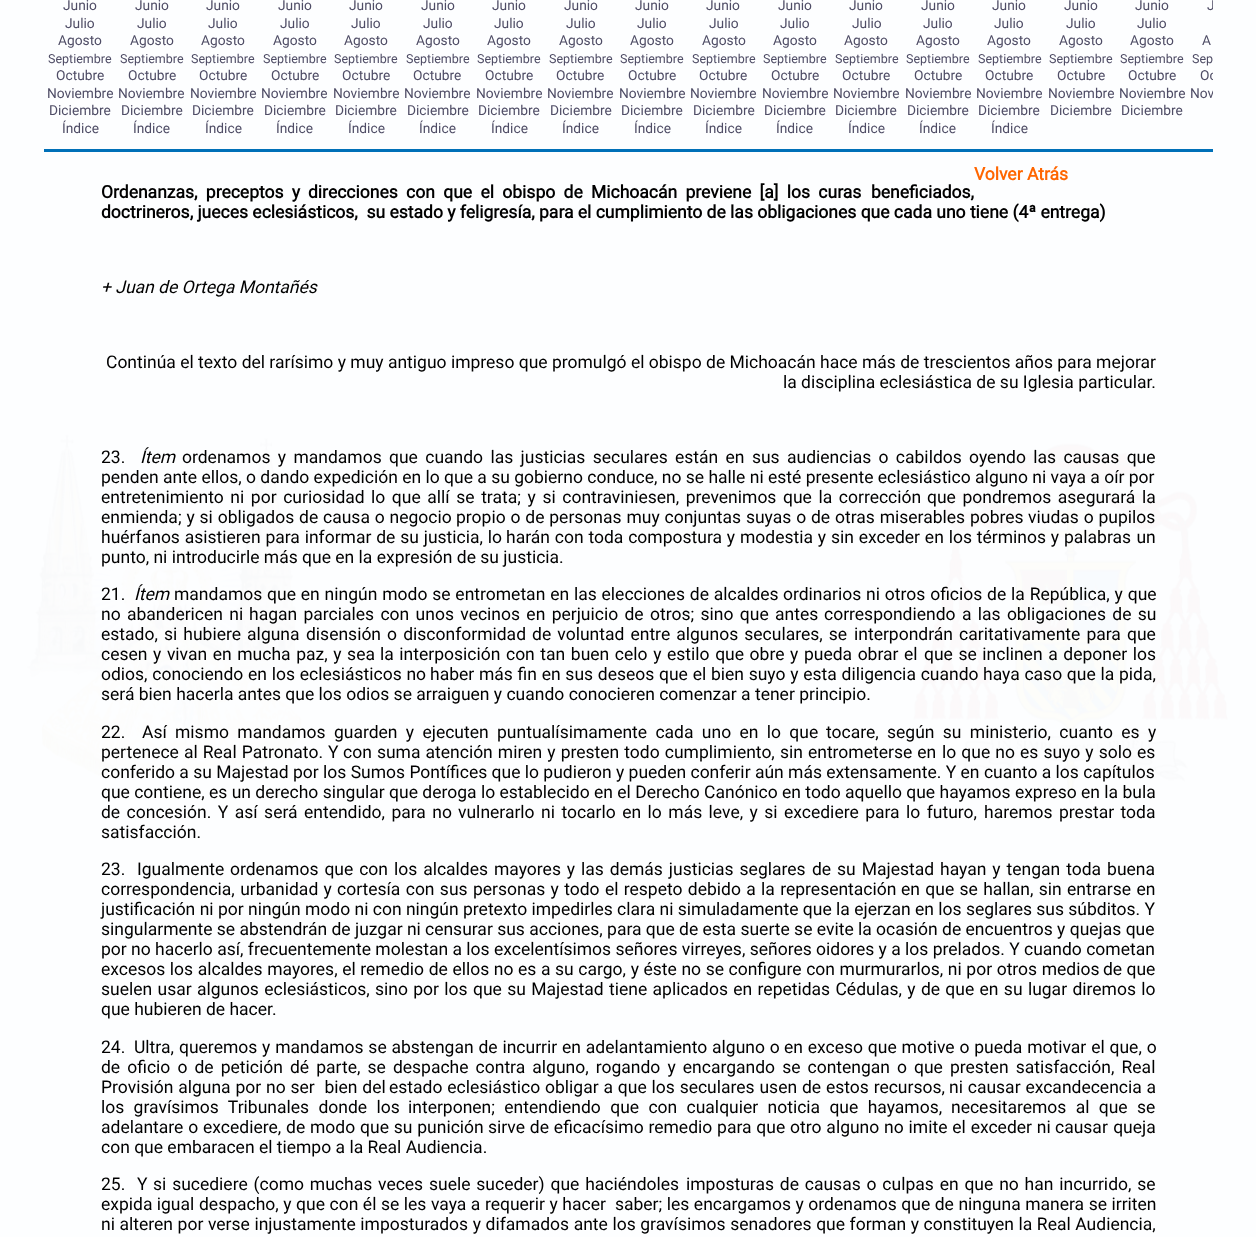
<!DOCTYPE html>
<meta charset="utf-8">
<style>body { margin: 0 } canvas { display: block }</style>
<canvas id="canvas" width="1256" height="1237"></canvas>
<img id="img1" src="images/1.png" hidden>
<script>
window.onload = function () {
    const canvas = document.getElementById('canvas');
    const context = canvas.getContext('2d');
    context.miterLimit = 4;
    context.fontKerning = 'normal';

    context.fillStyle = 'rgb(253, 254, 255)';
    context.fillRect(0, 0, 1256, 1237);
    context.drawImage(document.getElementById('img1'), 27, 434, 1201, 372);
    context.fillStyle = 'rgb(0, 112, 184)';
    context.fillRect(44, 149, 1169, 3);
    context.font = '13.75px Roboto';
    context.fillStyle = 'rgb(79, 77, 102)';
    context.fillText('Junio', 63, 10);
    context.fillText('Julio', 65, 28);
    context.fillText('Agosto', 58, 45);
    context.font = '12.5px Roboto';
    context.fillText('Septiembre', 48, 63);
    context.font = '13.75px Roboto';
    context.fillText('Octubre', 56, 80);
    context.fillText('Noviembre', 47, 98);
    context.fillText('Diciembre', 49, 115);
    context.fillText('Índice', 62, 133);
    context.fillText('Junio', 135, 10);
    context.fillText('Julio', 137, 28);
    context.fillText('Agosto', 130, 45);
    context.font = '12.5px Roboto';
    context.fillText('Septiembre', 120, 63);
    context.font = '13.75px Roboto';
    context.fillText('Octubre', 128, 80);
    context.fillText('Noviembre', 118, 98);
    context.fillText('Diciembre', 121, 115);
    context.fillText('Índice', 133, 133);
    context.fillText('Junio', 206, 10);
    context.fillText('Julio', 208, 28);
    context.fillText('Agosto', 201, 45);
    context.font = '12.5px Roboto';
    context.fillText('Septiembre', 191, 63);
    context.font = '13.75px Roboto';
    context.fillText('Octubre', 199, 80);
    context.fillText('Noviembre', 190, 98);
    context.fillText('Diciembre', 192, 115);
    context.fillText('Índice', 205, 133);
    context.fillText('Junio', 278, 10);
    context.fillText('Julio', 280, 28);
    context.fillText('Agosto', 273, 45);
    context.font = '12.5px Roboto';
    context.fillText('Septiembre', 263, 63);
    context.font = '13.75px Roboto';
    context.fillText('Octubre', 271, 80);
    context.fillText('Noviembre', 261, 98);
    context.fillText('Diciembre', 264, 115);
    context.fillText('Índice', 276, 133);
    context.fillText('Junio', 349, 10);
    context.fillText('Julio', 351, 28);
    context.fillText('Agosto', 344, 45);
    context.font = '12.5px Roboto';
    context.fillText('Septiembre', 334, 63);
    context.font = '13.75px Roboto';
    context.fillText('Octubre', 342, 80);
    context.fillText('Noviembre', 333, 98);
    context.fillText('Diciembre', 335, 115);
    context.fillText('Índice', 348, 133);
    context.fillText('Junio', 421, 10);
    context.fillText('Julio', 423, 28);
    context.fillText('Agosto', 416, 45);
    context.font = '12.5px Roboto';
    context.fillText('Septiembre', 406, 63);
    context.font = '13.75px Roboto';
    context.fillText('Octubre', 413, 80);
    context.fillText('Noviembre', 404, 98);
    context.fillText('Diciembre', 407, 115);
    context.fillText('Índice', 419, 133);
    context.fillText('Junio', 492, 10);
    context.fillText('Julio', 494, 28);
    context.fillText('Agosto', 487, 45);
    context.font = '12.5px Roboto';
    context.fillText('Septiembre', 477, 63);
    context.font = '13.75px Roboto';
    context.fillText('Octubre', 485, 80);
    context.fillText('Noviembre', 476, 98);
    context.fillText('Diciembre', 478, 115);
    context.fillText('Índice', 491, 133);
    context.fillText('Junio', 564, 10);
    context.fillText('Julio', 566, 28);
    context.fillText('Agosto', 559, 45);
    context.font = '12.5px Roboto';
    context.fillText('Septiembre', 549, 63);
    context.font = '13.75px Roboto';
    context.fillText('Octubre', 556, 80);
    context.fillText('Noviembre', 547, 98);
    context.fillText('Diciembre', 550, 115);
    context.fillText('Índice', 562, 133);
    context.fillText('Junio', 635, 10);
    context.fillText('Julio', 637, 28);
    context.fillText('Agosto', 630, 45);
    context.font = '12.5px Roboto';
    context.fillText('Septiembre', 620, 63);
    context.font = '13.75px Roboto';
    context.fillText('Octubre', 628, 80);
    context.fillText('Noviembre', 619, 98);
    context.fillText('Diciembre', 621, 115);
    context.fillText('Índice', 634, 133);
    context.fillText('Junio', 706, 10);
    context.fillText('Julio', 709, 28);
    context.fillText('Agosto', 702, 45);
    context.font = '12.5px Roboto';
    context.fillText('Septiembre', 692, 63);
    context.font = '13.75px Roboto';
    context.fillText('Octubre', 699, 80);
    context.fillText('Noviembre', 690, 98);
    context.fillText('Diciembre', 693, 115);
    context.fillText('Índice', 705, 133);
    context.fillText('Junio', 778, 10);
    context.fillText('Julio', 780, 28);
    context.fillText('Agosto', 773, 45);
    context.font = '12.5px Roboto';
    context.fillText('Septiembre', 763, 63);
    context.font = '13.75px Roboto';
    context.fillText('Octubre', 771, 80);
    context.fillText('Noviembre', 762, 98);
    context.fillText('Diciembre', 764, 115);
    context.fillText('Índice', 776, 133);
    context.fillText('Junio', 849, 10);
    context.fillText('Julio', 852, 28);
    context.fillText('Agosto', 844, 45);
    context.font = '12.5px Roboto';
    context.fillText('Septiembre', 835, 63);
    context.font = '13.75px Roboto';
    context.fillText('Octubre', 842, 80);
    context.fillText('Noviembre', 833, 98);
    context.fillText('Diciembre', 835, 115);
    context.fillText('Índice', 848, 133);
    context.fillText('Junio', 921, 10);
    context.fillText('Julio', 923, 28);
    context.fillText('Agosto', 916, 45);
    context.font = '12.5px Roboto';
    context.fillText('Septiembre', 906, 63);
    context.font = '13.75px Roboto';
    context.fillText('Octubre', 914, 80);
    context.fillText('Noviembre', 905, 98);
    context.fillText('Diciembre', 907, 115);
    context.fillText('Índice', 919, 133);
    context.fillText('Junio', 992, 10);
    context.fillText('Julio', 994, 28);
    context.fillText('Agosto', 987, 45);
    context.font = '12.5px Roboto';
    context.fillText('Septiembre', 978, 63);
    context.font = '13.75px Roboto';
    context.fillText('Octubre', 985, 80);
    context.fillText('Noviembre', 976, 98);
    context.fillText('Diciembre', 978, 115);
    context.fillText('Índice', 991, 133);
    context.fillText('Junio', 1064, 10);
    context.fillText('Julio', 1066, 28);
    context.fillText('Agosto', 1059, 45);
    context.font = '12.5px Roboto';
    context.fillText('Septiembre', 1049, 63);
    context.font = '13.75px Roboto';
    context.fillText('Octubre', 1057, 80);
    context.fillText('Noviembre', 1048, 98);
    context.fillText('Diciembre', 1050, 115);
    context.fillText('Junio', 1135, 10);
    context.fillText('Julio', 1137, 28);
    context.fillText('Agosto', 1130, 45);
    context.font = '12.5px Roboto';
    context.fillText('Septiembre', 1120, 63);
    context.font = '13.75px Roboto';
    context.fillText('Octubre', 1128, 80);
    context.fillText('Noviembre', 1119, 98);
    context.fillText('Diciembre', 1121, 115);
    context.save();
    context.beginPath();
    context.rect(44, 0, 1169, 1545);
    context.clip();
    context.fillText('J', 1207, 10);
    context.restore();
    context.fillText('A', 1202, 45);
    context.font = '12.5px Roboto';
    context.fillText('Sep', 1192, 63);
    context.save();
    context.beginPath();
    context.rect(44, 0, 1169, 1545);
    context.clip();
    context.font = '13.75px Roboto';
    context.fillText('Oc', 1200, 80);
    context.fillText('Nov', 1190, 98);
    context.restore();
    context.font = 'bold 17.5px Roboto';
    context.fillStyle = 'rgb(255, 102, 0)';
    context.fillText('Volver Atrás', 974, 180);
    context.wordSpacing = '4px';
    context.fillStyle = 'rgb(0, 0, 0)';
    context.fillText('Ordenanzas, preceptos y', 101, 198);
    context.fillText('direcciones con que el obispo de Michoacán previene [a] los curas', 308, 198);
    context.wordSpacing = '0px';
    context.fillText('beneficiados,', 871, 198);
    context.fillText('doctrineros, jueces eclesiásticos,  su estado y feligresía, para el cumplimiento de las obligaciones que cada uno tiene (4ª entrega)', 101, 218);
    context.font = 'italic 17.5px Roboto';
    context.fillText('+ Juan de Ortega Montañés', 101, 293);
    context.font = '17.5px Roboto';
    context.fillText('Continúa el texto del rarísimo y muy antiguo impreso que promulgó el obispo de Michoacán hace más de trescientos años para mejorar', 106, 368);
    context.fillText('la disciplina eclesiástica de su Iglesia particular.', 783, 388);
    context.fillText('23.', 101, 463);
    context.font = 'italic 17.5px Roboto';
    context.fillText('Ítem', 140, 463);
    context.wordSpacing = '3px';
    context.font = '17.5px Roboto';
    context.fillText('ordenamos y mandamos que cuando las justicias seculares están en sus', 182, 463);
    context.fillText('audiencias o cabildos oyendo las causas que', 787, 463);
    context.wordSpacing = '0px';
    context.fillText('penden ante ellos, o dando expedición en lo que a su gobierno conduce, no se halle ni esté presente eclesiástico alguno ni vaya a oír por', 101, 483);
    context.wordSpacing = '2.25px';
    context.fillText('entretenimiento ni por curiosidad', 101, 503);
    context.fillText('lo que allí se trata; y si contraviniesen, prevenimos que la corrección', 371, 503);
    context.fillText('que pondremos asegurará la', 927, 503);
    context.wordSpacing = '0.5px';
    context.fillText('enmienda; y si obligados de causa o negocio', 101, 523);
    context.fillText('propio o de personas muy conjuntas suyas o de otras miserables pobres', 456, 523);
    context.fillText('viudas o pupilos', 1028, 523);
    context.fillText('huérfanos asistieren para informar de su justicia, lo', 101, 543);
    context.fillText('harán con toda compostura y modestia y sin exceder en los términos y', 506, 543);
    context.wordSpacing = '1px';
    context.fillText('palabras un', 1064, 543);
    context.wordSpacing = '0px';
    context.fillText('punto, ni introducirle más que en la expresión de su justicia.', 101, 563);
    context.fillText('21.', 101, 600);
    context.font = 'italic 17.5px Roboto';
    context.fillText('Ítem', 134, 600);
    context.wordSpacing = '0.5px';
    context.font = '17.5px Roboto';
    context.fillText('mandamos que en ningún modo se entrometan en las elecciones de alcaldes', 174, 600);
    context.fillText('ordinarios ni otros oficios de la República, y que', 783, 600);
    context.wordSpacing = '2px';
    context.fillText('no abandericen ni', 101, 620);
    context.fillText('hagan parciales con unos vecinos en perjuicio de otros; sino que antes', 249, 620);
    context.fillText('correspondiendo a las obligaciones de su', 824, 620);
    context.wordSpacing = '1.75px';
    context.fillText('estado, si hubiere alguna', 101, 640);
    context.fillText('disensión o disconformidad de voluntad entre algunos seculares, se', 306, 640);
    context.fillText('interpondrán caritativamente para que', 854, 640);
    context.wordSpacing = '1.25px';
    context.fillText('cesen y vivan en mucha paz, y sea', 101, 660);
    context.fillText('la interposición con tan buen celo y estilo que obre y pueda obrar el', 380, 660);
    context.fillText('que se inclinen a deponer los', 924, 660);
    context.wordSpacing = '0.4px';
    context.fillText('odios, conociendo en los eclesiásticos no', 101, 680);
    context.fillText('haber más fin en sus deseos que el bien suyo y esta diligencia cuando', 430, 680);
    context.fillText('haya caso que la pida,', 983, 680);
    context.wordSpacing = '0px';
    context.fillText('será bien hacerla antes que los odios se arraiguen y cuando conocieren comenzar a tener principio.', 101, 700);
    context.fillText('22.', 101, 738);
    context.fillText('Así', 142, 738);
    context.wordSpacing = '4px';
    context.fillText('mismo mandamos guarden y ejecuten puntualísimamente cada uno en lo que', 175, 738);
    context.fillText('tocare, según su ministerio, cuanto es y', 826, 738);
    context.wordSpacing = '0.75px';
    context.fillText('pertenece al Real Patronato. Y', 101, 758);
    context.fillText('con suma atención miren y presten todo cumplimiento, sin entrometerse en', 343, 758);
    context.fillText('lo que no es suyo y solo es', 942, 758);
    context.wordSpacing = '0px';
    context.fillText('conferido a su Majestad por los Sumos Pontífices que lo pudieron y pueden conferir aún más extensamente. Y en cuanto a los capítulos', 101, 778);
    context.fillText('que contiene, es un derecho singular que deroga lo establecido en el Derecho Canónico en todo aquello que hayamos expreso en la bula', 101, 798);
    context.wordSpacing = '2.1px';
    context.fillText('de concesión. Y así será entendido, para no', 101, 818);
    context.fillText('vulnerarlo ni tocarlo en lo más leve, y si excediere para lo futuro,', 458, 818);
    context.fillText('haremos prestar toda', 984, 818);
    context.wordSpacing = '0px';
    context.fillText('satisfacción.', 101, 838);
    context.fillText('23.', 101, 875);
    context.fillText('Igualmente', 137, 875);
    context.wordSpacing = '1.6px';
    context.fillText('ordenamos que con los alcaldes mayores y las demás justicias seglares', 230, 875);
    context.fillText('de su Majestad hayan y tengan toda buena', 812, 875);
    context.wordSpacing = '1px';
    context.fillText('correspondencia, urbanidad y', 101, 895);
    context.fillText('cortesía con sus personas y todo el respeto debido a la representación', 337, 895);
    context.fillText('en que se hallan, sin entrarse en', 901, 895);
    context.wordSpacing = '0px';
    context.fillText('justificación ni por ningún modo ni con ningún pretexto impedirles clara ni simuladamente que la ejerzan en los seglares sus súbditos. Y', 101, 915);
    context.fillText('singularmente se abstendrán de juzgar ni', 101, 935);
    context.fillText('censurar sus acciones, para que de esta suerte se evite la ocasión de encuentros y quejas que', 425, 935);
    context.fillText('por no hacerlo así, frecuentemente molestan a los excelentísimos señores virreyes, señores oidores y a los prelados. Y cuando cometan', 101, 955);
    context.wordSpacing = '0.25px';
    context.fillText('excesos los alcaldes mayores, el remedio de ellos no es a su cargo, y éste no se configure con murmurarlos, ni por otros medios', 101, 975);
    context.wordSpacing = '0px';
    context.fillText('de que', 1103, 975);
    context.wordSpacing = '1px';
    context.fillText('suelen usar algunos eclesiásticos, sino por los que su Majestad', 101, 995);
    context.fillText('tiene aplicados en repetidas Cédulas, y de que en su lugar diremos lo', 609, 995);
    context.wordSpacing = '0px';
    context.fillText('que hubieren de hacer.', 101, 1015);
    context.fillText('24.', 101, 1053);
    context.fillText('Ultra,', 134, 1053);
    context.wordSpacing = '0.5px';
    context.fillText('queremos y mandamos se abstengan de incurrir en adelantamiento alguno o', 179, 1053);
    context.fillText('en exceso que motive o pueda motivar el que, o', 784, 1053);
    context.wordSpacing = '2.75px';
    context.fillText('de oficio o de petición', 101, 1073);
    context.fillText('dé parte, se despache contra alguno, rogando y encargando se contengan o', 290, 1073);
    context.fillText('que presten satisfacción, Real', 914, 1073);
    context.wordSpacing = '0.5px';
    context.fillText('Provisión alguna por no ser  bien del', 101, 1093);
    context.fillText('estado eclesiástico obligar a que los seculares usen de estos recursos,', 389, 1093);
    context.fillText('ni causar excandecencia a', 949, 1093);
    context.wordSpacing = '5px';
    context.fillText('los gravísimos Tribunales donde los', 101, 1113);
    context.fillText('interponen; entendiendo que con cualquier noticia que hayamos,', 408, 1113);
    context.fillText('necesitaremos al que se', 951, 1113);
    context.wordSpacing = '0.5px';
    context.fillText('adelantare o excediere, de modo que su punición', 101, 1133);
    context.fillText('sirve de eficacísimo remedio para que otro alguno no imite el exceder ni', 488, 1133);
    context.wordSpacing = '1px';
    context.fillText('causar queja', 1055, 1133);
    context.wordSpacing = '0px';
    context.fillText('con que embaracen el tiempo a la Real Audiencia.', 101, 1153);
    context.fillText('25.', 101, 1190);
    context.fillText('Y', 137, 1190);
    context.wordSpacing = '1.5px';
    context.fillText('si sucediere (como muchas veces suele suceder) que haciéndoles', 153, 1190);
    context.fillText('imposturas de causas o culpas en que no han incurrido, se', 686, 1190);
    context.wordSpacing = '0px';
    context.fillText('expida igual', 101, 1210);
    context.wordSpacing = '0.2px';
    context.fillText('despacho, y que con él se les vaya a requerir y hacer  saber; les encargamos y ordenamos que de ninguna manera se irriten', 199, 1210);
    context.wordSpacing = '0.25px';
    context.fillText('ni alteren por verse injustamente imposturados y difamados ante los gravísimos senadores que forman y constituyen la Real Audiencia,', 101, 1230);
};
</script>
